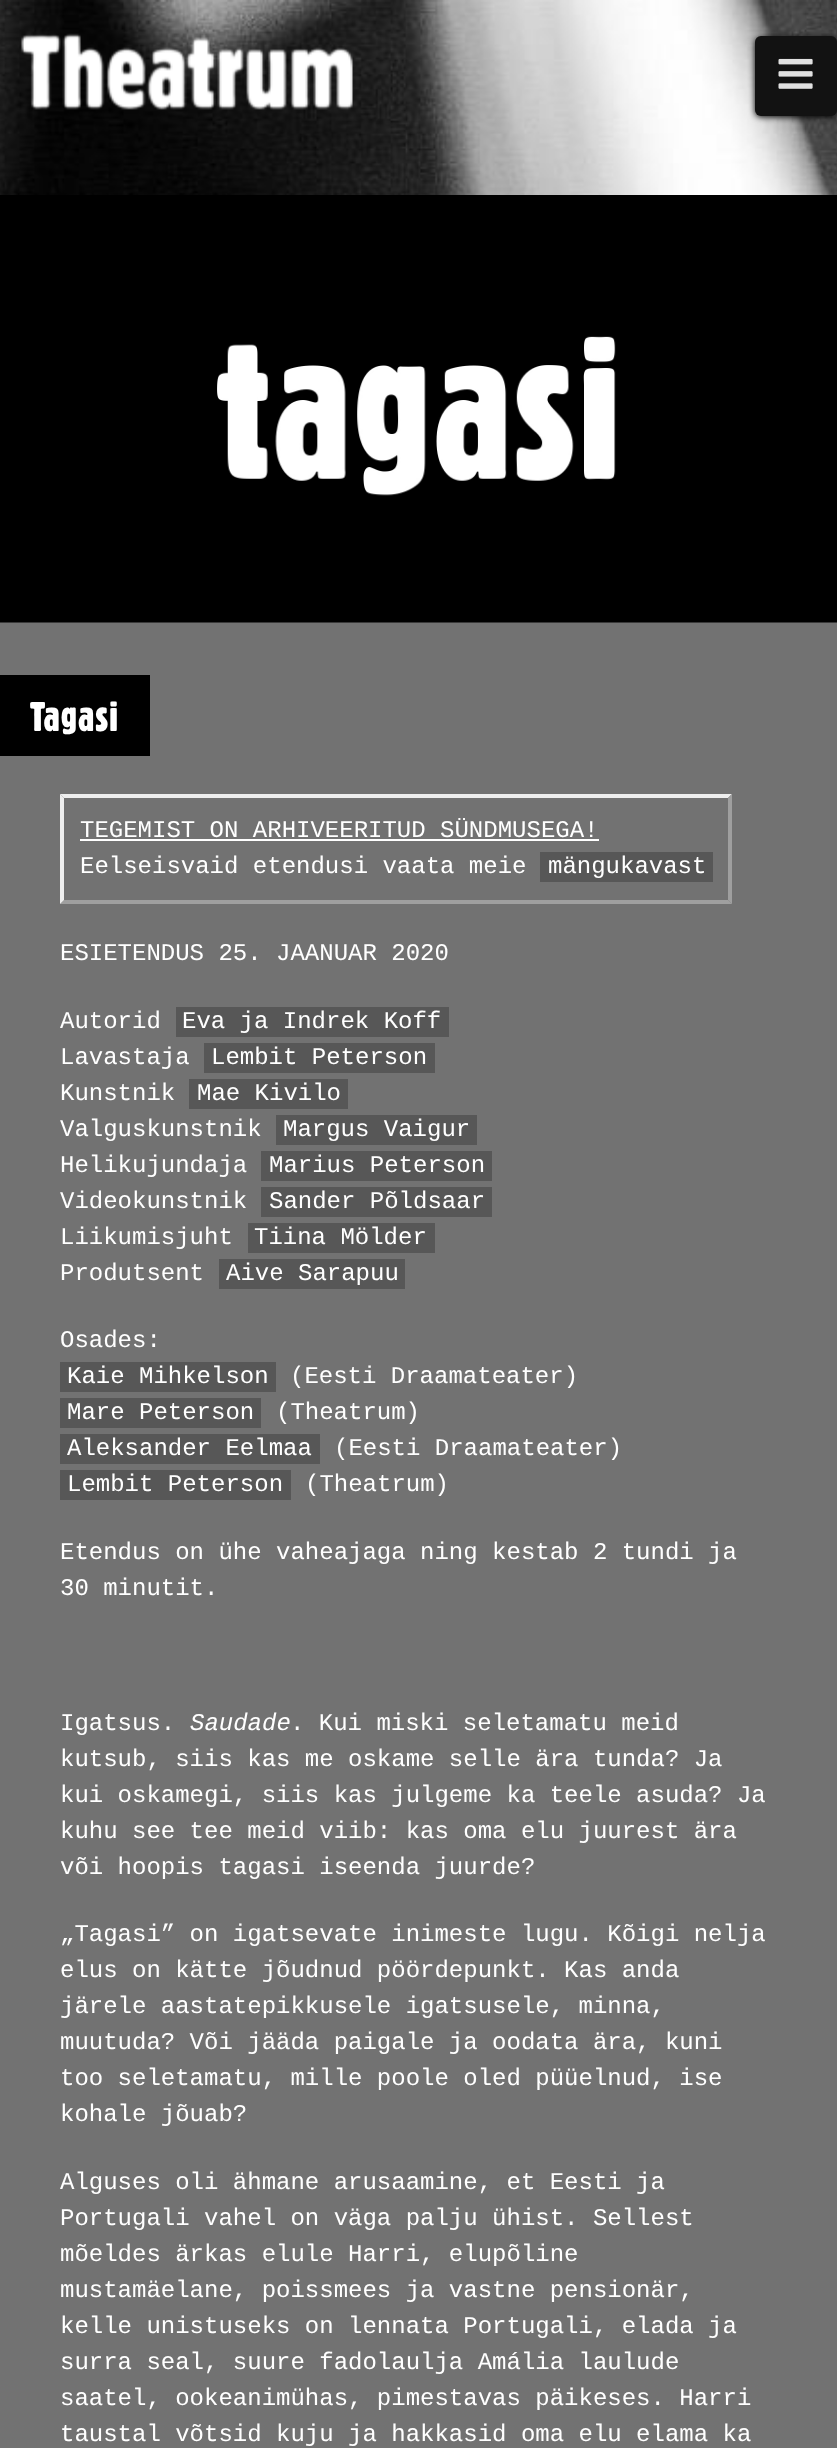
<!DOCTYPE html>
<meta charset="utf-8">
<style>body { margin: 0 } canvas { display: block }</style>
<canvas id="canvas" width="837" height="2448"></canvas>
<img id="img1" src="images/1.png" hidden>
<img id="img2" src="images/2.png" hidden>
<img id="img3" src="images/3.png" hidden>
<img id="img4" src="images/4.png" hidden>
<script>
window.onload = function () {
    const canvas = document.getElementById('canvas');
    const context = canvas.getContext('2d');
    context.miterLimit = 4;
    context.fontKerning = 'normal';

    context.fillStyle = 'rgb(255, 255, 255)';
    context.fillRect(0, 0, 837, 2448);
    context.drawImage(document.getElementById('img1'), 0, 0, 837, 195);
    context.drawImage(document.getElementById('img2'), 21, 33, 332, 77);
    context.fillStyle = 'rgb(0, 0, 0)';
    context.filter = 'blur(3px)';
    context.beginPath();
    context.roundRect(755, 38, 82, 79, 6);
    context.fill();
    context.filter = 'none';
    context.fillStyle = 'rgb(18, 18, 18)';
    context.beginPath();
    context.roundRect(755, 36, 82, 80, 6);
    context.fill();
    context.drawImage(document.getElementById('img3'), 778, 58, 35, 31);
    context.fillStyle = 'rgb(114, 114, 114)';
    context.fillRect(0, 622, 837, 1826);
    context.drawImage(document.getElementById('img4'), 0, 195, 837, 428);
    context.fillStyle = 'rgb(0, 0, 0)';
    context.fillRect(0, 675, 150, 81);
    context.fillStyle = 'rgb(238, 238, 238)';
    context.beginPath();
    context.moveTo(60, 794);
    context.lineTo(732, 794);
    context.lineTo(728, 798);
    context.lineTo(64, 798);
    context.closePath();
    context.fill();
    context.fillStyle = 'rgb(159, 159, 159)';
    context.beginPath();
    context.moveTo(732, 794);
    context.lineTo(732, 904);
    context.lineTo(728, 900);
    context.lineTo(728, 798);
    context.closePath();
    context.fill();
    context.beginPath();
    context.moveTo(732, 904);
    context.lineTo(60, 904);
    context.lineTo(64, 900);
    context.lineTo(728, 900);
    context.closePath();
    context.fill();
    context.fillStyle = 'rgb(238, 238, 238)';
    context.beginPath();
    context.moveTo(60, 904);
    context.lineTo(60, 794);
    context.lineTo(64, 798);
    context.lineTo(64, 900);
    context.closePath();
    context.fill();
    context.fillStyle = 'rgb(255, 255, 255)';
    context.fillRect(80, 839, 519, 2);
    context.fillStyle = 'rgb(87, 87, 87)';
    context.fillRect(540, 852, 173, 30);
    context.fillRect(176, 1007, 273, 30);
    context.fillRect(204, 1043, 231, 30);
    context.fillRect(189, 1079, 159, 30);
    context.fillRect(276, 1115, 201, 30);
    context.fillRect(261, 1151, 231, 30);
    context.fillRect(261, 1187, 231, 30);
    context.fillRect(248, 1223, 187, 30);
    context.fillRect(219, 1259, 186, 30);
    context.fillRect(60, 1362, 216, 30);
    context.fillRect(60, 1398, 201, 30);
    context.fillRect(60, 1434, 260, 30);
    context.fillRect(60, 1470, 231, 30);
    context.letterSpacing = '0.5px';
    context.font = '40.5px "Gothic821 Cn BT"';
    context.fillStyle = 'rgb(255, 255, 255)';
    context.fillText('Tagasi', 30, 731);
    context.letterSpacing = '0px';
    context.font = '24px Liberation Mono';
    context.fillText('TEGEMIST ON ARHIVEERITUD SÜNDMUSEGA!', 80, 837);
    context.fillText('Eelseisvaid etendusi vaata meie', 80, 873);
    context.fillText('mängukavast', 548, 873);
    context.fillText('ESIETENDUS 25. JAANUAR 2020', 60, 960);
    context.fillText('Autorid', 60, 1028);
    context.fillText('Eva ja Indrek Koff', 182, 1028);
    context.fillText('Lavastaja', 60, 1064);
    context.fillText('Lembit Peterson', 211, 1064);
    context.fillText('Kunstnik', 60, 1100);
    context.fillText('Mae Kivilo', 197, 1100);
    context.fillText('Valguskunstnik', 60, 1136);
    context.fillText('Margus Vaigur', 283, 1136);
    context.fillText('Helikujundaja', 60, 1172);
    context.fillText('Marius Peterson', 269, 1172);
    context.fillText('Videokunstnik', 60, 1208);
    context.fillText('Sander Põldsaar', 269, 1208);
    context.fillText('Liikumisjuht', 60, 1244);
    context.fillText('Tiina Mölder', 254, 1244);
    context.fillText('Produtsent', 60, 1280);
    context.fillText('Aive Sarapuu', 226, 1280);
    context.fillText('Osades:', 60, 1347);
    context.fillText('Kaie Mihkelson', 67, 1383);
    context.fillText('(Eesti Draamateater)', 290, 1383);
    context.fillText('Mare Peterson', 67, 1419);
    context.fillText('(Theatrum)', 276, 1419);
    context.fillText('Aleksander Eelmaa', 67, 1455);
    context.fillText('(Eesti Draamateater)', 334, 1455);
    context.fillText('Lembit Peterson', 67, 1491);
    context.fillText('(Theatrum)', 305, 1491);
    context.fillText('Etendus on ühe vaheajaga ning kestab 2 tundi ja', 60, 1559);
    context.fillText('30 minutit.', 60, 1595);
    context.fillText('Igatsus.', 60, 1730);
    context.font = 'italic 24px Liberation Mono';
    context.fillText('Saudade', 190, 1730);
    context.font = '24px Liberation Mono';
    context.fillText('. Kui miski seletamatu meid', 290, 1730);
    context.fillText('kutsub, siis kas me oskame selle ära tunda? Ja', 60, 1766);
    context.fillText('kui oskamegi, siis kas julgeme ka teele asuda? Ja', 60, 1802);
    context.fillText('kuhu see tee meid viib: kas oma elu juurest ära', 60, 1838);
    context.fillText('või hoopis tagasi iseenda juurde?', 60, 1874);
    context.fillText('„Tagasi” on igatsevate inimeste lugu. Kõigi nelja', 60, 1941);
    context.fillText('elus on kätte jõudnud pöördepunkt. Kas anda', 60, 1977);
    context.fillText('järele aastatepikkusele igatsusele, minna,', 60, 2013);
    context.fillText('muutuda? Või jääda paigale ja oodata ära, kuni', 60, 2049);
    context.fillText('too seletamatu, mille poole oled püüelnud, ise', 60, 2085);
    context.fillText('kohale jõuab?', 60, 2121);
    context.fillText('Alguses oli ähmane arusaamine, et Eesti ja', 60, 2189);
    context.fillText('Portugali vahel on väga palju ühist. Sellest', 60, 2225);
    context.fillText('mõeldes ärkas elule Harri, elupõline', 60, 2261);
    context.fillText('mustamäelane, poissmees ja vastne pensionär,', 60, 2297);
    context.fillText('kelle unistuseks on lennata Portugali, elada ja', 60, 2333);
    context.fillText('surra seal, suure fadolaulja Amália laulude', 60, 2369);
    context.fillText('saatel, ookeanimühas, pimestavas päikeses. Harri', 60, 2405);
    context.fillText('taustal võtsid kuju ja hakkasid oma elu elama ka', 60, 2441);
};
</script>
